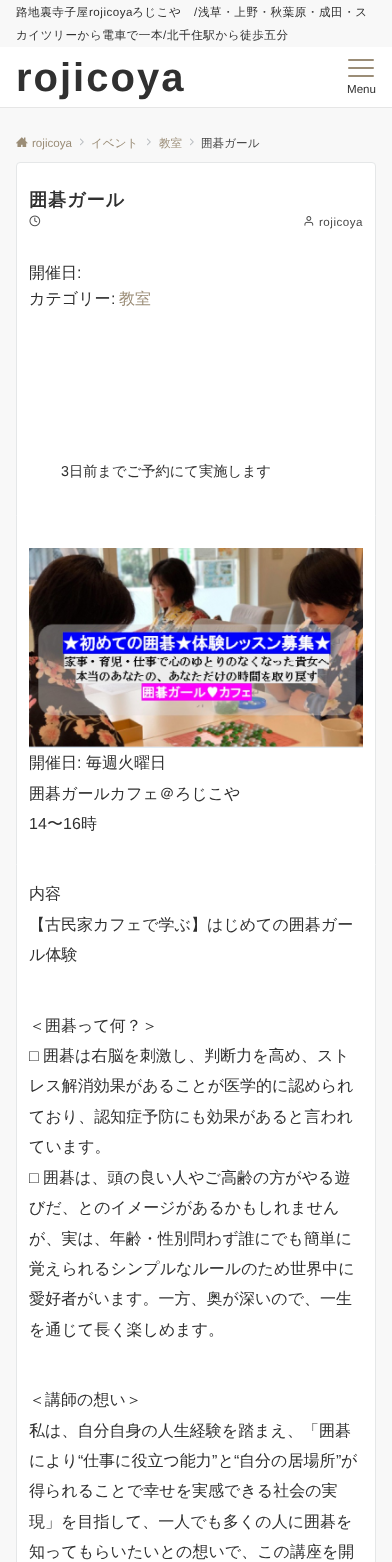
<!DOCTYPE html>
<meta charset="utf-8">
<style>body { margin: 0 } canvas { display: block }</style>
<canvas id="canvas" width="392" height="1562"></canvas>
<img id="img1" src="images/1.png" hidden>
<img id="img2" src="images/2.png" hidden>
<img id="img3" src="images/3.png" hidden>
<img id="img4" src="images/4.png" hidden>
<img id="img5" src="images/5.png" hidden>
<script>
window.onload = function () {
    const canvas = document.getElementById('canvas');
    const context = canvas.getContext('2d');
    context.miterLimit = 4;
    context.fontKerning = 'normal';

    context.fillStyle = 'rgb(248, 248, 248)';
    context.fillRect(0, 0, 392, 1562);
    context.fillStyle = 'rgb(255, 255, 255)';
    context.fillRect(0, 47, 392, 60);
    context.fillStyle = 'rgb(230, 230, 230)';
    context.fillRect(0, 107, 392, 1);
    context.fillStyle = 'rgb(155, 141, 119)';
    context.beginPath();
    context.roundRect(348, 59, 26, 2, 1);
    context.fill();
    context.beginPath();
    context.roundRect(348, 67, 26, 2, 1);
    context.fill();
    context.beginPath();
    context.roundRect(348, 75, 26, 2, 1);
    context.fill();
    context.drawImage(document.getElementById('img1'), 16, 137, 12, 10);
    context.drawImage(document.getElementById('img2'), 80, 138, 4, 8);
    context.drawImage(document.getElementById('img2'), 147, 138, 4, 8);
    context.drawImage(document.getElementById('img2'), 190, 138, 4, 8);
    context.fillStyle = 'rgb(255, 255, 255)';
    context.beginPath();
    context.roundRect(16.5, 162.5, 359, 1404, 3.5);
    context.fill();
    context.strokeStyle = 'rgb(229, 231, 232)';
    context.stroke();
    context.drawImage(document.getElementById('img3'), 29, 215, 12, 12);
    context.drawImage(document.getElementById('img4'), 304, 216, 10, 10);
    context.drawImage(document.getElementById('img5'), 29, 548, 334, 200);
    context.letterSpacing = '0.5px';
    context.font = '500 11.6px WenQuanYi Zen Hei';
    context.fillStyle = 'rgb(48, 48, 48)';
    context.fillText('路地裏寺子屋', 16, 16);
    context.font = '11.6px Liberation Sans';
    context.fillText('rojicoya', 89, 16);
    context.font = '500 11.6px WenQuanYi Zen Hei';
    context.fillText('ろじこや', 132, 16);
    context.font = '11.6px Liberation Sans';
    context.fillText('/', 194, 16);
    context.font = '500 11.6px WenQuanYi Zen Hei';
    context.fillText('浅草・上野・秋葉原・成田・ス', 198, 16);
    context.fillText('カイツリーから電車で一本 北千住駅から徒歩五分', 16, 39);
    context.font = '11.6px Liberation Sans';
    context.fillText('/', 163, 39);
    context.letterSpacing = '2px';
    context.font = 'bold 40px Liberation Sans';
    context.fillText('rojicoya', 16, 91);
    context.letterSpacing = '0px';
    context.font = '11.6px Liberation Sans';
    context.fillText('Menu', 347, 93);
    context.fillStyle = 'rgb(155, 141, 119)';
    context.fillText('rojicoya', 32, 147);
    context.font = '500 11.6px WenQuanYi Zen Hei';
    context.fillText('イベント', 91, 147);
    context.fillText('教室', 159, 147);
    context.fillStyle = 'rgb(72, 72, 72)';
    context.fillText('囲碁ガール', 201, 147);
    context.letterSpacing = '0.75px';
    context.font = 'bold 18.25px WenQuanYi Zen Hei';
    context.fillStyle = 'rgb(48, 48, 48)';
    context.fillText('囲碁ガール', 29, 206);
    context.letterSpacing = '0.5px';
    context.font = '11.6px Liberation Sans';
    context.fillStyle = 'rgb(72, 72, 72)';
    context.fillText('rojicoya', 319, 226);
    context.letterSpacing = '0px';
    context.font = '500 16px WenQuanYi Zen Hei';
    context.fillStyle = 'rgb(48, 48, 48)';
    context.fillText('開催日', 29, 278);
    context.font = '16px Liberation Sans';
    context.fillText(':', 77, 278);
    context.font = '500 16px WenQuanYi Zen Hei';
    context.fillText('カテゴリー', 29, 304);
    context.font = '16px Liberation Sans';
    context.fillText(':', 111, 304);
    context.font = '500 16px WenQuanYi Zen Hei';
    context.fillStyle = 'rgb(155, 141, 119)';
    context.fillText('教室', 119, 304);
    context.font = '14.25px Liberation Sans';
    context.fillStyle = 'rgb(48, 48, 48)';
    context.fillText('3', 61, 476);
    context.font = '500 14.25px WenQuanYi Zen Hei';
    context.fillText('日前までご予約にて実施します', 69, 476);
    context.font = '500 16px WenQuanYi Zen Hei';
    context.fillText('開催日', 29, 768);
    context.font = '16px Liberation Sans';
    context.fillText(':', 77, 768);
    context.font = '500 16px WenQuanYi Zen Hei';
    context.fillText('毎週火曜日', 86, 768);
    context.fillText('囲碁ガールカフェ＠ろじこや', 29, 799);
    context.font = '16px Liberation Sans';
    context.fillText('14', 29, 829);
    context.font = '500 16px WenQuanYi Zen Hei';
    context.fillText('〜', 47, 829);
    context.font = '16px Liberation Sans';
    context.fillText('16', 63, 829);
    context.font = '500 16px WenQuanYi Zen Hei';
    context.fillText('時', 81, 829);
    context.fillText('内容', 29, 899);
    context.fillText('【古民家カフェで学ぶ】はじめての囲碁ガー', 29, 930);
    context.fillText('ル体験', 29, 960);
    context.fillText('＜囲碁って何？＞', 29, 1031);
    context.font = '16px Liberation Sans';
    context.fillText('□', 29, 1061);
    context.font = '500 16px WenQuanYi Zen Hei';
    context.fillText('囲碁は右脳を刺激し、判断力を高め、スト', 43, 1061);
    context.fillText('レス解消効果があることが医学的に認められ', 29, 1091);
    context.fillText('ており、認知症予防にも効果があると言われ', 29, 1122);
    context.fillText('ています。', 29, 1152);
    context.font = '16px Liberation Sans';
    context.fillText('□', 29, 1183);
    context.font = '500 16px WenQuanYi Zen Hei';
    context.fillText('囲碁は、頭の良い人やご高齢の方がやる遊', 43, 1183);
    context.fillText('びだ、とのイメージがあるかもしれません', 29, 1213);
    context.fillText('が、実は、年齢・性別問わず誰にでも簡単に', 29, 1244);
    context.fillText('覚えられるシンプルなルールのため世界中に', 29, 1274);
    context.fillText('愛好者がいます。一方、奥が深いので、一生', 29, 1304);
    context.fillText('を通じて長く楽しめます。', 29, 1335);
    context.fillText('＜講師の想い＞', 29, 1405);
    context.fillText('私は、自分自身の人生経験を踏まえ、「囲碁', 29, 1436);
    context.fillText('により', 29, 1466);
    context.font = '16px Liberation Sans';
    context.fillText('“', 78, 1466);
    context.font = '500 16px WenQuanYi Zen Hei';
    context.fillText('仕事に役立つ能力', 83, 1466);
    context.font = '16px Liberation Sans';
    context.fillText('”', 212, 1466);
    context.font = '500 16px WenQuanYi Zen Hei';
    context.fillText('と', 218, 1466);
    context.font = '16px Liberation Sans';
    context.fillText('“', 234, 1466);
    context.font = '500 16px WenQuanYi Zen Hei';
    context.fillText('自分の居場所', 239, 1466);
    context.font = '16px Liberation Sans';
    context.fillText('”', 336, 1466);
    context.font = '500 16px WenQuanYi Zen Hei';
    context.fillText('が', 341, 1466);
    context.fillText('得られることで幸せを実感できる社会の実', 29, 1496);
    context.fillText('現」を目指して、一人でも多くの人に囲碁を', 29, 1527);
    context.fillText('知ってもらいたいとの想いで、この講座を開', 29, 1557);
};
</script>
